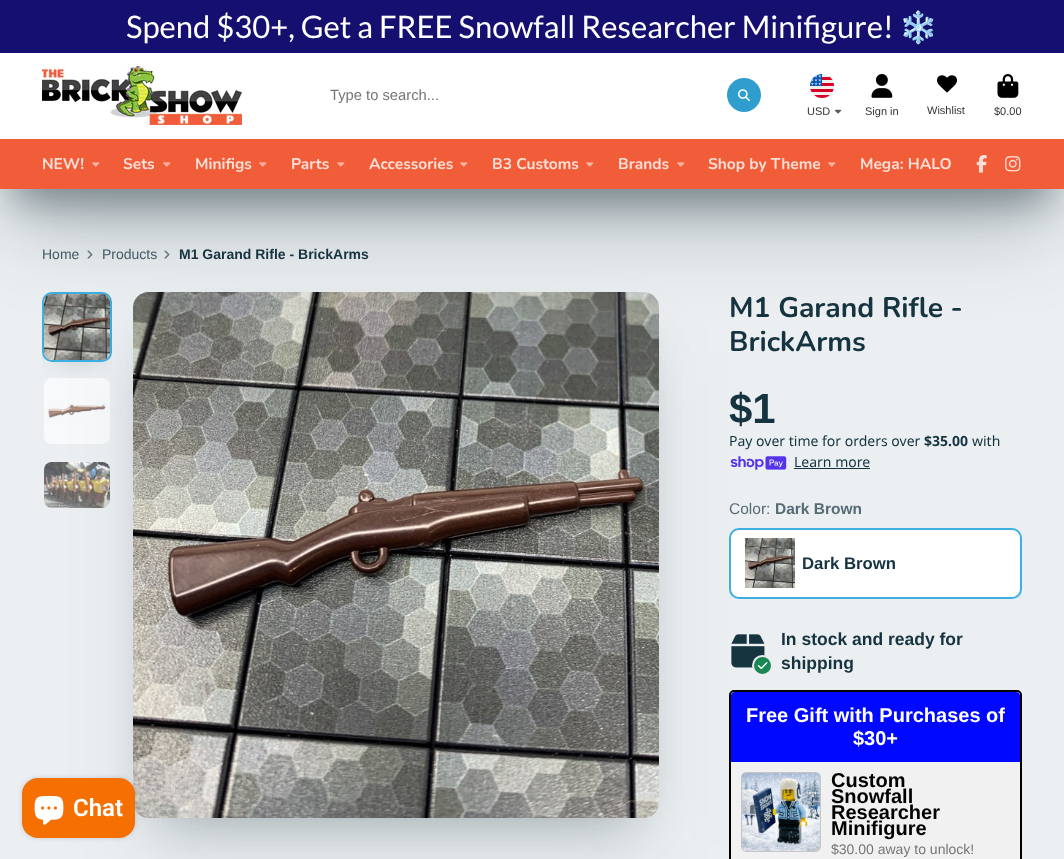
<!DOCTYPE html>
<meta charset="utf-8">
<style>body { margin: 0 } canvas { display: block }</style>
<canvas id="canvas" width="1064" height="859"></canvas>
<img id="img1" src="images/11.png" hidden>
<img id="img2" src="images/13.png" hidden>
<img id="img3" src="images/14.png" hidden>
<img id="img4" src="images/15.png" hidden>
<img id="img5" src="images/12.png" hidden>
<img id="img6" src="images/1.png" hidden>
<img id="img7" src="images/2.png" hidden>
<img id="img8" src="images/3.png" hidden>
<img id="img9" src="images/4.png" hidden>
<img id="img10" src="images/5.png" hidden>
<img id="img11" src="images/6.png" hidden>
<img id="img12" src="images/7.png" hidden>
<img id="img13" src="images/8.png" hidden>
<img id="img14" src="images/9.png" hidden>
<img id="img15" src="images/10.png" hidden>
<img id="img16" src="images/16.png" hidden>
<img id="img17" src="images/17.png" hidden>
<img id="img18" src="images/18.png" hidden>
<img id="img19" src="images/19.png" hidden>
<img id="img20" src="images/20.png" hidden>
<img id="img21" src="images/21.png" hidden>
<script>
window.onload = function () {
    const canvas = document.getElementById('canvas');
    const context = canvas.getContext('2d');
    context.miterLimit = 4;
    context.fontKerning = 'normal';

    context.fillStyle = 'rgb(235, 239, 241)';
    context.fillRect(0, 0, 1064, 859);
    context.drawImage(document.getElementById('img1'), 87, 250, 6, 9);
    context.drawImage(document.getElementById('img1'), 164, 250, 6, 9);
    context.fillStyle = 'rgba(15, 36, 45, 0.4)';
    context.filter = 'blur(19px)';
    context.beginPath();
    context.rect(14, 92, 1036, 109);
    context.fill();
    context.filter = 'none';
    context.save();
    context.beginPath();
    context.rect(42, 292, 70, 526);
    context.clip();
    context.fillStyle = 'rgba(15, 36, 45, 0.3)';
    context.filter = 'blur(14px)';
    context.beginPath();
    context.rect(56, 313, 42, 42);
    context.fill();
    context.filter = 'none';
    context.restore();
    context.beginPath();
    context.roundRect(43, 293, 68, 68, 9);
    context.strokeStyle = 'rgb(62, 175, 225)';
    context.lineWidth = 2;
    context.stroke();
    context.drawImage(document.getElementById('img2'), 44, 294, 66, 66);
    context.drawImage(document.getElementById('img3'), 44, 378, 66, 66);
    context.drawImage(document.getElementById('img4'), 44, 462, 66, 46);
    context.fillStyle = 'rgba(15, 36, 45, 0.3)';
    context.filter = 'blur(26px)';
    context.beginPath();
    context.rect(159, 345, 474, 473);
    context.fill();
    context.filter = 'none';
    context.fillStyle = 'rgba(15, 36, 45, 0.1)';
    context.filter = 'blur(44px)';
    context.beginPath();
    context.rect(151, 353, 491, 491);
    context.fill();
    context.filter = 'none';
    context.drawImage(document.getElementById('img5'), 133, 292, 526, 526);
    context.fillStyle = 'rgba(15, 36, 45, 0.3)';
    context.filter = 'blur(44px)';
    context.beginPath();
    context.rect(14, 110, 1036, 109);
    context.fill();
    context.filter = 'none';
    context.fillStyle = 'rgb(21, 16, 112)';
    context.fillRect(0, 0, 1064, 53);
    context.fillStyle = 'rgb(255, 255, 255)';
    context.fillRect(0, 53, 1064, 86);
    context.drawImage(document.getElementById('img6'), 42, 66, 200, 59);
    context.fillStyle = 'rgb(47, 158, 207)';
    context.beginPath();
    context.arc(744, 95, 17, 0, 2 * Math.PI);
    context.fill();
    context.drawImage(document.getElementById('img7'), 738, 89, 12, 12);
    context.drawImage(document.getElementById('img8'), 810, 74, 24, 24);
    context.drawImage(document.getElementById('img9'), 834, 109, 8, 5);
    context.drawImage(document.getElementById('img10'), 871, 74, 22, 24);
    context.drawImage(document.getElementById('img11'), 937, 75, 20, 18);
    context.drawImage(document.getElementById('img12'), 997, 74, 22, 24);
    context.fillStyle = 'rgb(241, 93, 57)';
    context.fillRect(0, 139, 1064, 50);
    context.drawImage(document.getElementById('img13'), 92, 162, 8, 5);
    context.drawImage(document.getElementById('img13'), 163, 162, 8, 5);
    context.drawImage(document.getElementById('img13'), 259, 162, 8, 5);
    context.drawImage(document.getElementById('img13'), 337, 162, 8, 5);
    context.drawImage(document.getElementById('img13'), 460, 162, 8, 5);
    context.drawImage(document.getElementById('img13'), 586, 162, 8, 5);
    context.drawImage(document.getElementById('img13'), 677, 162, 8, 5);
    context.drawImage(document.getElementById('img13'), 828, 162, 8, 5);
    context.drawImage(document.getElementById('img14'), 976, 155, 11, 18);
    context.drawImage(document.getElementById('img15'), 1005, 156, 16, 16);
    context.drawImage(document.getElementById('img16'), 730, 456, 57, 14);
    context.fillStyle = 'rgb(22, 51, 64)';
    context.fillRect(794, 468, 76, 1);
    context.save();
    context.beginPath();
    context.rect(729, 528, 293, 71);
    context.clip();
    context.fillStyle = 'rgba(15, 36, 45, 0.3)';
    context.filter = 'blur(14px)';
    context.beginPath();
    context.rect(743, 549, 265, 43);
    context.fill();
    context.filter = 'none';
    context.restore();
    context.fillStyle = 'rgb(255, 255, 255)';
    context.beginPath();
    context.roundRect(730, 529, 291, 69, 9);
    context.fill();
    context.stroke();
    context.drawImage(document.getElementById('img17'), 745, 538, 50, 50);
    context.drawImage(document.getElementById('img18'), 731, 634, 34, 34);
    context.fillStyle = 'rgb(25, 135, 84)';
    context.beginPath();
    context.arc(762.5, 665.5, 9.5, 0, 2 * Math.PI);
    context.fill();
    context.strokeStyle = 'rgb(237, 237, 237)';
    context.stroke();
    context.drawImage(document.getElementById('img19'), 757, 662, 11, 7);
    context.fillStyle = 'rgb(241, 241, 241)';
    context.beginPath();
    context.roundRect(730, 691, 291, 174, 4);
    context.fill();
    context.strokeStyle = 'rgb(0, 0, 0)';
    context.stroke();
    context.fillStyle = 'rgb(0, 8, 255)';
    context.beginPath();
    context.roundRect(731, 692, 289, 70, [4, 4, 0, 0]);
    context.fill();
    context.beginPath();
    context.roundRect(741.5, 772.5, 79, 79, 4.5);
    context.strokeStyle = 'rgb(198, 198, 198)';
    context.lineWidth = 1;
    context.stroke();
    context.drawImage(document.getElementById('img20'), 742, 773, 78, 78);
    context.fillStyle = 'rgba(0, 0, 0, 0.15)';
    context.filter = 'blur(2.5px)';
    context.beginPath();
    context.roundRect(22, 778, 113, 60, 16);
    context.fill();
    context.filter = 'none';
    context.fillStyle = 'rgb(245, 112, 0)';
    context.beginPath();
    context.roundRect(22, 778, 113, 60, 16);
    context.fill();
    context.drawImage(document.getElementById('img21'), 34, 796, 30, 29);
    context.font = '31px Lato';
    context.fillStyle = 'rgb(255, 255, 255)';
    context.fillText('Spend $30+, Get a FREE Snowfall Researcher Minifigure!', 126, 38);
    context.font = '31px Noto Color Emoji';
    context.fillText('❄️', 899, 38);
    context.font = '14.75px Liberation Sans';
    context.fillStyle = 'rgb(119, 117, 117)';
    context.fillText('Type to search...', 330, 100);
    context.font = '11px Liberation Sans';
    context.fillStyle = 'rgb(51, 51, 51)';
    context.fillText('USD', 807, 115);
    context.fillText('Sign in', 865, 115);
    context.fillText('Wishlist', 927, 114);
    context.fillText('$0.00', 994, 115);
    context.font = 'bold 15.5px Nunito';
    context.fillStyle = 'rgb(252, 223, 215)';
    context.fillText('NEW!', 42, 169);
    context.fillText('Sets', 123, 169);
    context.fillText('Minifigs', 195, 169);
    context.fillText('Parts', 291, 169);
    context.fillText('Accessories', 369, 169);
    context.fillText('B3 Customs', 492, 169);
    context.fillText('Brands', 618, 169);
    context.fillText('Shop by Theme', 708, 169);
    context.fillText('Mega: HALO', 860, 169);
    context.font = '14px Liberation Sans';
    context.fillStyle = 'rgb(65, 89, 99)';
    context.fillText('Home', 42, 259);
    context.fillText('Products', 102, 259);
    context.font = 'bold 14px Liberation Sans';
    context.fillStyle = 'rgb(22, 51, 64)';
    context.fillText('M1 Garand Rifle - BrickArms', 179, 259);
    context.font = 'bold 28.25px Nunito';
    context.fillText('M1 Garand Rifle -', 729, 317);
    context.fillText('BrickArms', 729, 351);
    context.font = 'bold 42px Liberation Sans';
    context.fillText('$1', 729, 423);
    context.font = '14px Noto Sans';
    context.fillText('Pay over time for orders over', 729, 446);
    context.font = 'bold 14px Noto Sans';
    context.fillText('$35.00', 924, 446);
    context.font = '14px Noto Sans';
    context.fillText('with', 972, 446);
    context.fillText('Learn more', 794, 467);
    context.font = '15.5px Liberation Sans';
    context.fillStyle = 'rgb(86, 107, 117)';
    context.fillText('Color:', 729, 514);
    context.font = 'bold 15.5px Liberation Sans';
    context.fillText('Dark Brown', 775, 514);
    context.font = 'bold 16.75px Liberation Sans';
    context.fillStyle = 'rgb(22, 51, 64)';
    context.fillText('Dark Brown', 802, 569);
    context.font = 'bold 17.5px Liberation Sans';
    context.fillText('In stock and ready for', 781, 645);
    context.fillText('shipping', 781, 669);
    context.font = 'bold 20px Liberation Sans';
    context.fillStyle = 'rgb(255, 255, 255)';
    context.fillText('Free Gift with Purchases of', 746, 722);
    context.fillText('$30+', 853, 745);
    context.fillStyle = 'rgb(0, 0, 0)';
    context.fillText('Custom', 831, 787);
    context.fillText('Snowfall', 831, 803);
    context.fillText('Researcher', 831, 819);
    context.fillText('Minifigure', 831, 835);
    context.font = '14px Liberation Sans';
    context.fillStyle = 'rgb(119, 117, 117)';
    context.fillText('$30.00 away to unlock!', 831, 854);
    context.font = '600 24px Roboto';
    context.fillStyle = 'rgb(255, 255, 255)';
    context.fillText('Chat', 73, 816);
};
</script>
